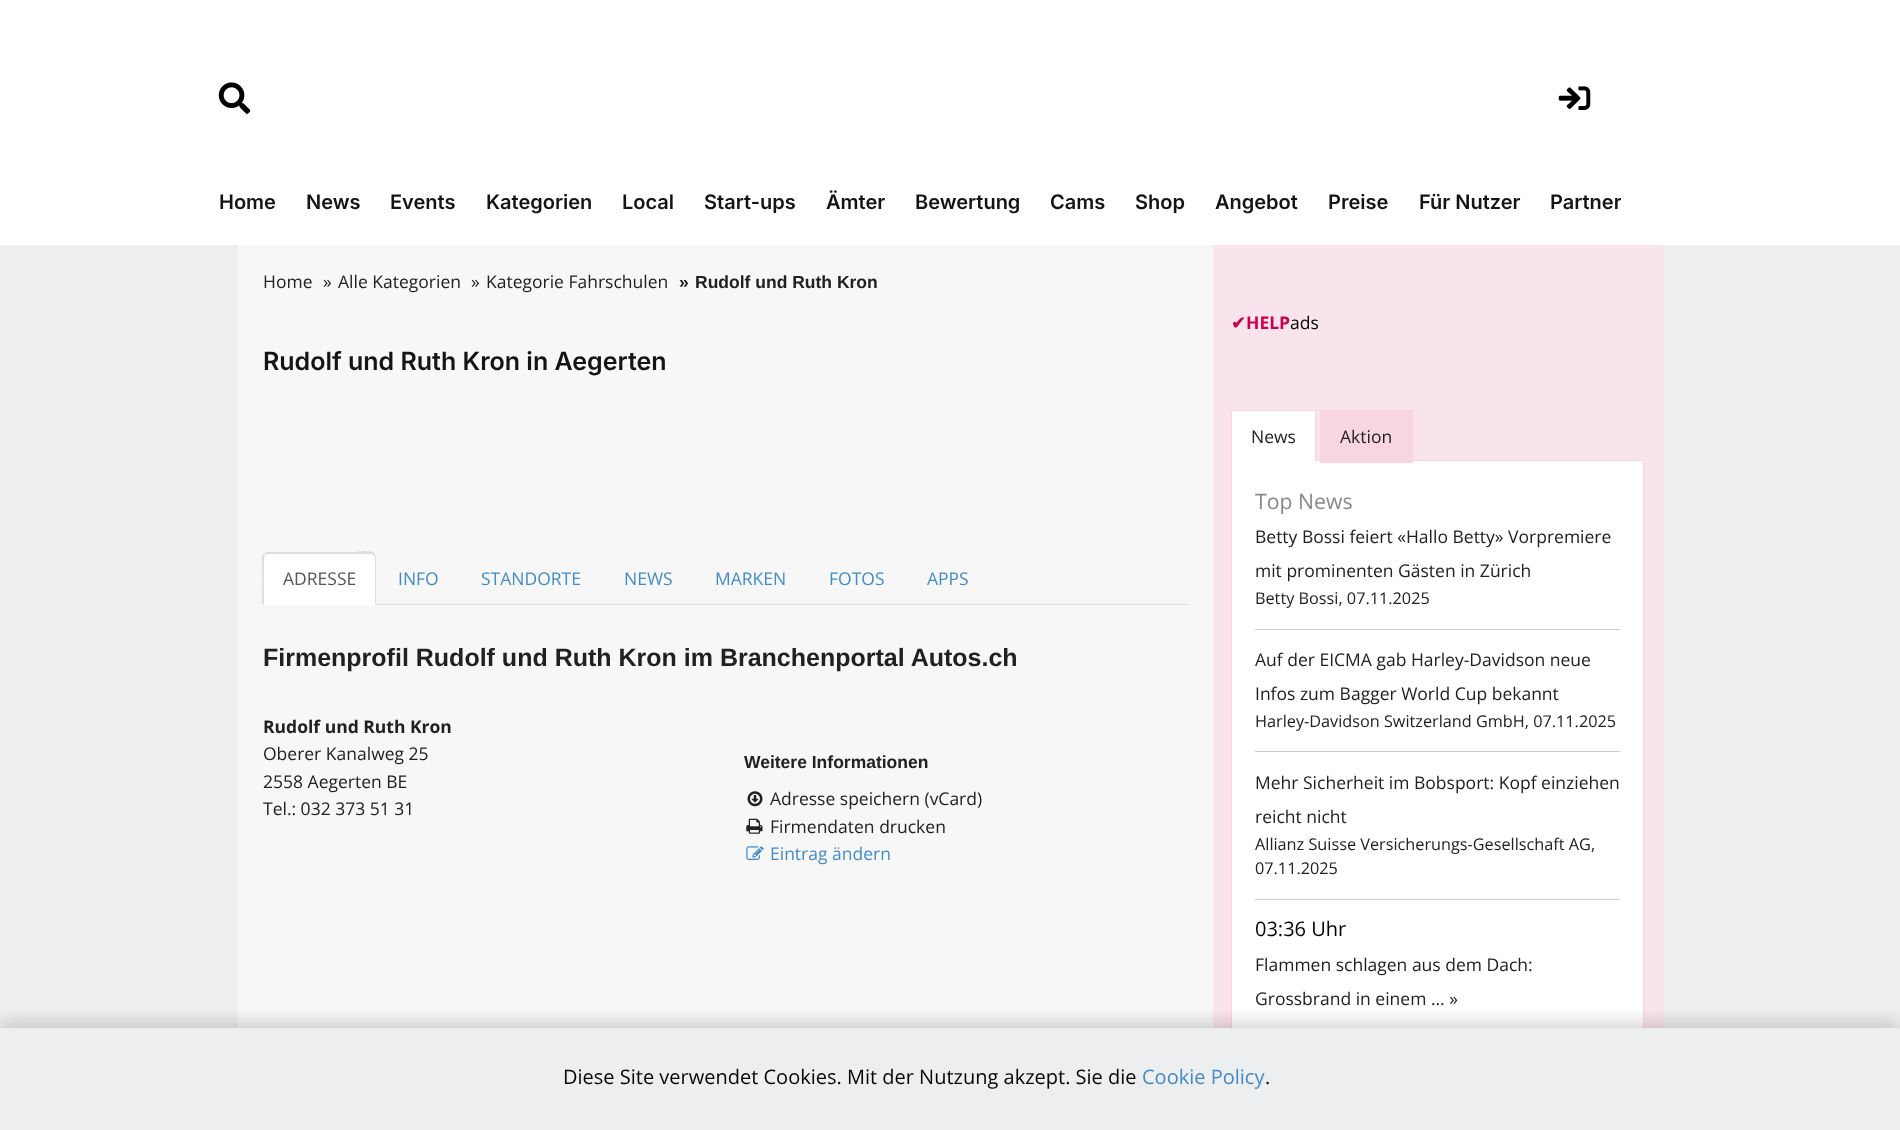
<!DOCTYPE html>
<meta charset="utf-8">
<style>body { margin: 0 } canvas { display: block }</style>
<canvas id="canvas" width="1900" height="1130"></canvas>
<img id="img1" src="images/1.png" hidden>
<img id="img2" src="images/2.png" hidden>
<img id="img3" src="images/3.png" hidden>
<img id="img4" src="images/4.png" hidden>
<img id="img5" src="images/5.png" hidden>
<script>
window.onload = function () {
    const canvas = document.getElementById('canvas');
    const context = canvas.getContext('2d');
    context.miterLimit = 4;
    context.fontKerning = 'normal';

    context.fillStyle = 'rgb(255, 255, 255)';
    context.fillRect(0, 0, 1900, 1130);
    context.drawImage(document.getElementById('img1'), 218, 82, 33, 32);
    context.drawImage(document.getElementById('img2'), 1558, 86, 33, 24);
    context.fillStyle = 'rgb(238, 238, 238)';
    context.fillRect(0, 245, 1900, 783);
    context.fillStyle = 'rgb(237, 238, 239)';
    context.fillRect(0, 1028, 1900, 102);
    context.fillStyle = 'rgb(247, 247, 247)';
    context.fillRect(238, 245, 975, 783);
    context.fillStyle = 'rgb(221, 221, 221)';
    context.fillRect(376, 604, 812, 1);
    context.fillStyle = 'rgb(255, 255, 255)';
    context.beginPath();
    context.roundRect(263, 553, 113, 52, [5, 5, 0, 0]);
    context.fill();
    context.fillStyle = 'rgb(221, 221, 221)';
    context.beginPath();
    context.moveTo(268, 554);
    context.lineTo(265, 555);
    context.lineTo(264, 554);
    context.lineTo(266, 552);
    context.lineTo(355, 552);
    context.bezierCurveTo(357, 552, 371, 549, 375, 554);
    context.lineTo(374, 555);
    context.lineTo(371, 554);
    context.closePath();
    context.fill();
    context.beginPath();
    context.moveTo(375, 554);
    context.bezierCurveTo(376, 555, 376, 557, 376, 558);
    context.lineTo(376, 605);
    context.lineTo(375, 604);
    context.lineTo(375, 557);
    context.lineTo(374, 555);
    context.closePath();
    context.fill();
    context.beginPath();
    context.moveTo(262, 605);
    context.lineTo(262, 556);
    context.lineTo(264, 554);
    context.lineTo(265, 555);
    context.bezierCurveTo(263, 557, 264, 598, 264, 604);
    context.closePath();
    context.fill();
    context.drawImage(document.getElementById('img3'), 747, 791, 16, 16);
    context.drawImage(document.getElementById('img4'), 746, 818, 17, 16);
    context.drawImage(document.getElementById('img5'), 746, 846, 18, 14);
    context.fillStyle = 'rgb(250, 228, 236)';
    context.fillRect(1213, 245, 450, 783);
    context.fillStyle = 'rgb(247, 213, 225)';
    context.fillRect(1316, 460, 328, 1);
    context.fillStyle = 'rgb(255, 255, 255)';
    context.fillRect(1232, 411, 83, 50);
    context.fillStyle = 'rgb(247, 213, 225)';
    context.fillRect(1231, 410, 85, 1);
    context.fillRect(1315, 410, 1, 51);
    context.fillRect(1231, 410, 1, 51);
    context.fillStyle = 'rgb(255, 255, 255)';
    context.fillRect(1232, 461, 411, 567);
    context.fillStyle = 'rgb(247, 213, 225)';
    context.fillRect(1320, 410, 93, 53);
    context.fillRect(1643, 461, 1, 567);
    context.fillRect(1231, 461, 1, 567);
    context.fillStyle = 'rgb(204, 204, 204)';
    context.fillRect(1255, 629, 365, 1);
    context.fillRect(1255, 751, 365, 1);
    context.fillRect(1255, 899, 365, 1);
    context.save();
    context.beginPath();
    context.rect(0, 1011, 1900, 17);
    context.clip();
    context.fillStyle = 'rgba(0, 0, 0, 0.18)';
    context.filter = 'blur(9.5px)';
    context.beginPath();
    context.rect(1, 1023, 1898, 100);
    context.fill();
    context.filter = 'none';
    context.restore();
    context.font = '600 20px Inter';
    context.fillStyle = 'rgb(20, 20, 23)';
    context.fillText('Home', 219, 209);
    context.fillText('News', 306, 209);
    context.fillText('Events', 390, 209);
    context.fillText('Kategorien', 486, 209);
    context.fillText('Local', 622, 209);
    context.fillText('Start-ups', 704, 209);
    context.fillText('Ämter', 826, 209);
    context.fillText('Bewertung', 915, 209);
    context.fillText('Cams', 1050, 209);
    context.fillText('Shop', 1135, 209);
    context.fillText('Angebot', 1215, 209);
    context.fillText('Preise', 1328, 209);
    context.fillText('Für Nutzer', 1419, 209);
    context.save();
    context.beginPath();
    context.rect(1550, 158, 71, 87);
    context.clip();
    context.fillText('Partner', 1550, 209);
    context.restore();
    context.font = '17.5px Open Sans';
    context.fillStyle = 'rgb(33, 33, 33)';
    context.fillText('Home', 263, 288);
    context.fillText('»', 323, 288);
    context.fillText('Alle Kategorien', 338, 288);
    context.fillText('»', 471, 288);
    context.fillText('Kategorie Fahrschulen', 486, 288);
    context.font = 'bold 17.5px Liberation Sans';
    context.fillText('»', 679, 288);
    context.fillText('Rudolf und Ruth Kron', 695, 288);
    context.font = '600 25px Inter';
    context.fillStyle = 'rgb(20, 20, 23)';
    context.fillText('Rudolf und Ruth Kron in Aegerten', 263, 370);
    context.font = '17.5px Open Sans';
    context.fillStyle = 'rgb(85, 85, 85)';
    context.fillText('ADRESSE', 283, 585);
    context.fillStyle = 'rgb(66, 139, 202)';
    context.fillText('INFO', 398, 585);
    context.fillText('STANDORTE', 481, 585);
    context.fillText('NEWS', 624, 585);
    context.fillText('MARKEN', 715, 585);
    context.fillText('FOTOS', 829, 585);
    context.fillText('APPS', 927, 585);
    context.font = 'bold 25px Liberation Sans';
    context.fillStyle = 'rgb(33, 33, 33)';
    context.fillText('Firmenprofil Rudolf und Ruth Kron im Branchenportal Autos.ch', 263, 666);
    context.font = 'bold 17.5px Open Sans';
    context.fillText('Rudolf und Ruth Kron', 263, 733);
    context.font = '17.5px Open Sans';
    context.fillText('Oberer Kanalweg 25', 263, 760);
    context.fillText('2558 Aegerten BE', 263, 788);
    context.fillText('Tel.: 032 373 51 31', 263, 815);
    context.font = 'bold 17.5px Liberation Sans';
    context.fillText('Weitere Informationen', 744, 768);
    context.font = '17.5px Open Sans';
    context.fillText('Adresse speichern (vCard)', 770, 805);
    context.fillText('Firmendaten drucken', 770, 833);
    context.fillStyle = 'rgb(66, 139, 202)';
    context.fillText('Eintrag ändern', 770, 860);
    context.font = 'bold 17.5px DejaVu Sans';
    context.fillStyle = 'rgb(204, 0, 78)';
    context.fillText('✔', 1231, 329);
    context.font = 'bold 17.5px Open Sans';
    context.fillText('HELP', 1246, 329);
    context.font = '17.5px Open Sans';
    context.fillStyle = 'rgb(0, 0, 0)';
    context.fillText('ads', 1290, 329);
    context.fillStyle = 'rgb(33, 33, 33)';
    context.fillText('News', 1251, 443);
    context.fillText('Aktion', 1340, 443);
    context.font = '21.25px Open Sans';
    context.fillStyle = 'rgb(136, 136, 136)';
    context.fillText('Top News', 1255, 509);
    context.font = '17.5px Open Sans';
    context.fillStyle = 'rgb(33, 33, 33)';
    context.fillText('Betty Bossi feiert «Hallo Betty» Vorpremiere', 1255, 543);
    context.fillText('mit prominenten Gästen in Zürich', 1255, 577);
    context.font = '16.25px Open Sans';
    context.fillText('Betty Bossi, 07.11.2025', 1255, 604);
    context.font = '17.5px Open Sans';
    context.fillText('Auf der EICMA gab Harley-Davidson neue', 1255, 666);
    context.fillText('Infos zum Bagger World Cup bekannt', 1255, 700);
    context.font = '16.25px Open Sans';
    context.fillText('Harley-Davidson Switzerland GmbH, 07.11.2025', 1255, 727);
    context.font = '17.5px Open Sans';
    context.fillText('Mehr Sicherheit im Bobsport: Kopf einziehen', 1255, 789);
    context.fillText('reicht nicht', 1255, 823);
    context.font = '16.25px Open Sans';
    context.fillText('Allianz Suisse Versicherungs-Gesellschaft AG,', 1255, 850);
    context.fillText('07.11.2025', 1255, 874);
    context.font = '20px Open Sans';
    context.fillStyle = 'rgb(0, 0, 0)';
    context.fillText('03:36 Uhr', 1255, 936);
    context.font = '17.5px Open Sans';
    context.fillStyle = 'rgb(33, 33, 33)';
    context.fillText('Flammen schlagen aus dem Dach:', 1255, 971);
    context.fillText('Grossbrand in einem ... »', 1255, 1005);
    context.font = '20px Open Sans';
    context.fillStyle = 'rgb(7, 7, 7)';
    context.fillText('Diese Site verwendet Cookies. Mit der Nutzung akzept. Sie die', 563, 1084);
    context.fillStyle = 'rgb(66, 139, 202)';
    context.fillText('Cookie Policy', 1142, 1084);
    context.fillStyle = 'rgb(7, 7, 7)';
    context.fillText('.', 1265, 1084);
};
</script>
